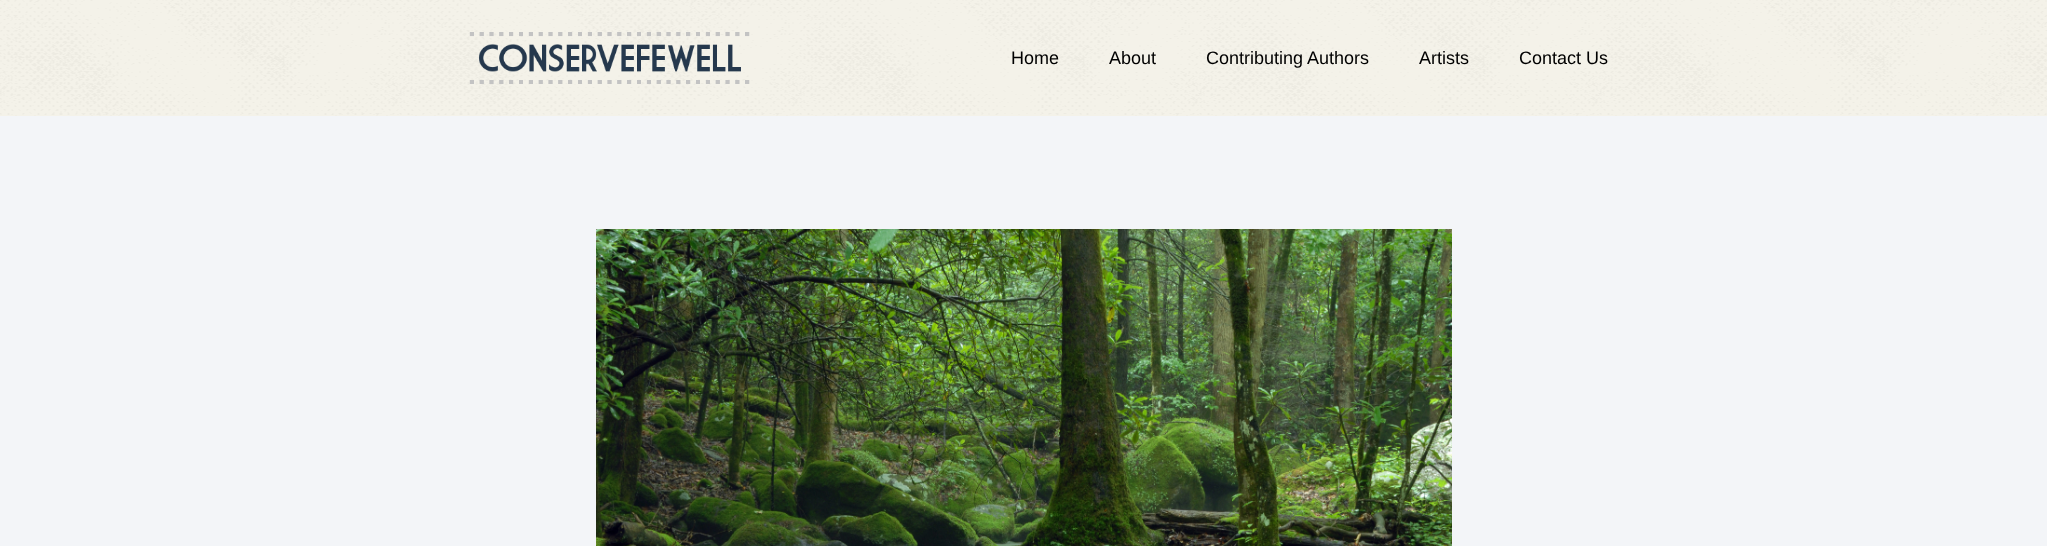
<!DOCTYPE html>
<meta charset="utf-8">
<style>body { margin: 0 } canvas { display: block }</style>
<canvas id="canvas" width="2047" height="546"></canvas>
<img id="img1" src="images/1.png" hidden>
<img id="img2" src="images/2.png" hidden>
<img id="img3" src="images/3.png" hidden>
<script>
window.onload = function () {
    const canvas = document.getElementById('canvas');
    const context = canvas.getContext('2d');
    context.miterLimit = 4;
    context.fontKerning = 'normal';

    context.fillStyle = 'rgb(243, 245, 248)';
    context.fillRect(0, 0, 2047, 546);
    context.drawImage(document.getElementById('img1'), 0, 0, 2047, 116);
    context.drawImage(document.getElementById('img2'), 469, 32, 281, 52);
    context.drawImage(document.getElementById('img3'), 596, 229, 856, 317);
    context.font = '18px Liberation Sans';
    context.fillStyle = 'rgb(0, 0, 0)';
    context.fillText('Home', 1011, 64);
    context.fillText('About', 1109, 64);
    context.fillText('Contributing Authors', 1206, 64);
    context.fillText('Artists', 1419, 64);
    context.fillText('Contact Us', 1519, 64);
};
</script>
